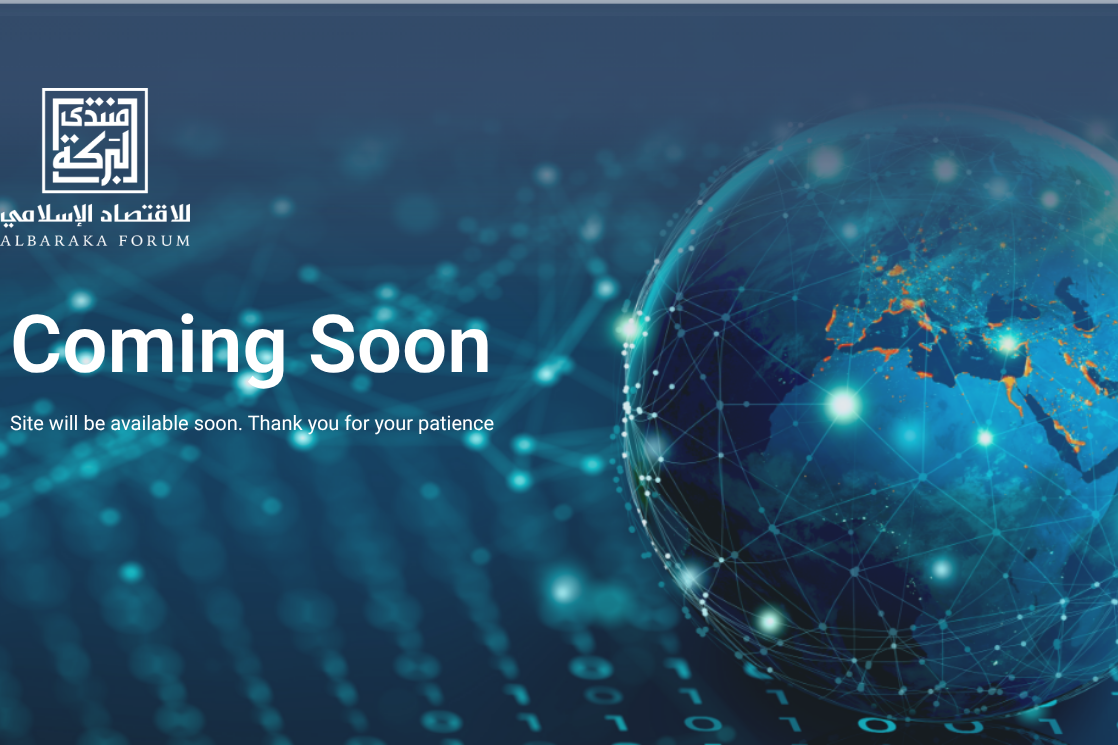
<!DOCTYPE html>
<meta charset="utf-8">
<style>body { margin: 0 } canvas { display: block }</style>
<canvas id="canvas" width="1118" height="745"></canvas>
<img id="img1" src="images/1.png" hidden>
<img id="img2" src="images/2.png" hidden>
<script>
window.onload = function () {
    const canvas = document.getElementById('canvas');
    const context = canvas.getContext('2d');
    context.miterLimit = 4;
    context.fontKerning = 'normal';

    context.fillStyle = 'rgb(255, 255, 255)';
    context.fillRect(0, 0, 1118, 745);
    context.drawImage(document.getElementById('img1'), 0, 0, 1118, 745);
    context.drawImage(document.getElementById('img2'), 0, 88, 190, 158);
    context.font = '600 80px Roboto';
    context.fillText('Coming Soon', 10, 372);
    context.font = '20px Roboto';
    context.fillText('Site will be available soon. Thank you for your patience', 10, 430);
};
</script>
